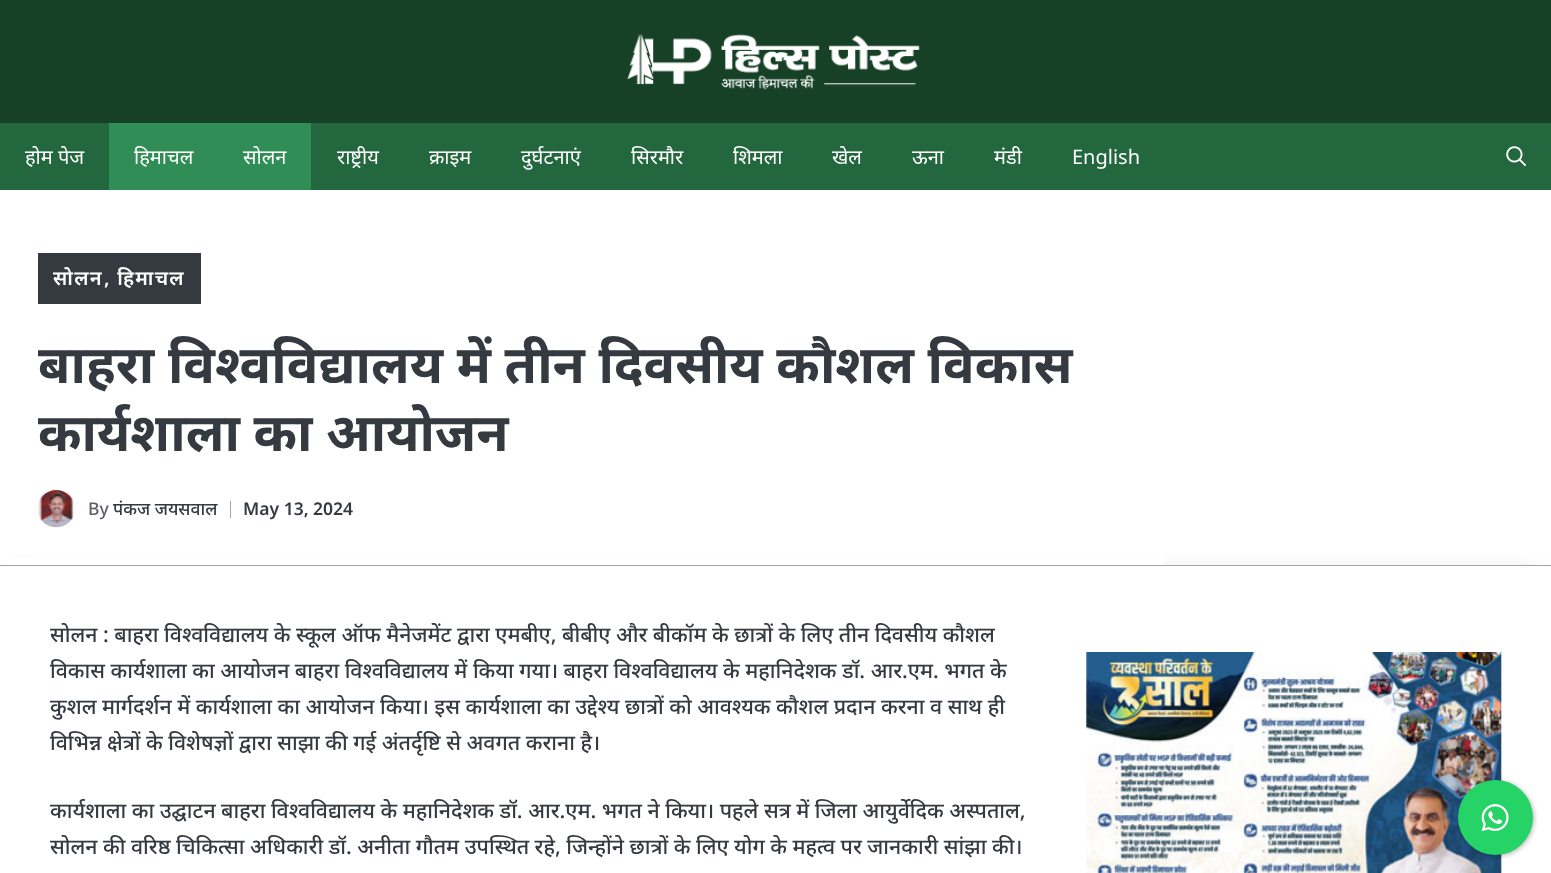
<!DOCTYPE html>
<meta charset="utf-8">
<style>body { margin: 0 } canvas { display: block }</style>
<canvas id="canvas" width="1551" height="873"></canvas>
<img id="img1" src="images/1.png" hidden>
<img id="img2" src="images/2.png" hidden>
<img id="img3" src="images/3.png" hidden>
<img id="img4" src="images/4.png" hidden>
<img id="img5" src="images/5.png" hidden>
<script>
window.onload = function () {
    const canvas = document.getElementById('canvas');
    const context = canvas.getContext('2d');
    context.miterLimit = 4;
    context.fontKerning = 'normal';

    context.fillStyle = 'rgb(255, 255, 255)';
    context.fillRect(0, 0, 1551, 873);
    context.fillStyle = 'rgb(22, 65, 39)';
    context.fillRect(0, 0, 1551, 123);
    context.drawImage(document.getElementById('img1'), 627, 34, 293, 56);
    context.fillStyle = 'rgb(35, 103, 62)';
    context.fillRect(0, 123, 1551, 67);
    context.fillStyle = 'rgb(48, 141, 85)';
    context.fillRect(109, 123, 202, 67);
    context.drawImage(document.getElementById('img2'), 1506, 146, 20, 20);
    context.fillStyle = 'rgba(0, 0, 0, 0.3)';
    context.filter = 'blur(12.5px)';
    context.beginPath();
    context.rect(13, 579, 1526, 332);
    context.fill();
    context.filter = 'none';
    context.fillStyle = 'rgb(160, 161, 173)';
    context.fillRect(0, 565, 1551, 1);
    context.fillStyle = 'rgba(255, 255, 255, 0.9)';
    context.fillRect(6, 557, 1158, 8);
    context.fillStyle = 'rgb(52, 58, 64)';
    context.fillRect(38, 253, 163, 51);
    context.drawImage(document.getElementById('img3'), 37, 490, 38, 38);
    context.fillStyle = 'rgb(160, 161, 173)';
    context.fillRect(230, 501, 1, 17);
    context.fillStyle = 'rgb(255, 255, 255)';
    context.fillRect(0, 566, 1551, 307);
    context.drawImage(document.getElementById('img4'), 1086, 652, 416, 221);
    context.fillStyle = 'rgba(0, 0, 0, 0.3)';
    context.filter = 'blur(2.5px)';
    context.beginPath();
    context.roundRect(1459, 781, 75, 75, 37.5);
    context.fill();
    context.filter = 'none';
    context.fillStyle = 'rgb(37, 211, 102)';
    context.beginPath();
    context.arc(1495.5, 817.5, 37.5, 0, 2 * Math.PI);
    context.fill();
    context.drawImage(document.getElementById('img5'), 1481, 804, 28, 28);
    context.font = '20px Noto Sans';
    context.fillStyle = 'rgb(255, 255, 255)';
    context.fillText('होम पेज', 25, 164);
    context.fillText('हिमाचल', 134, 164);
    context.fillText('सोलन', 243, 164);
    context.fillText('राष्ट्रीय', 337, 164);
    context.fillText('क्राइम', 429, 164);
    context.fillText('दुर्घटनाएं', 521, 164);
    context.fillText('सिरमौर', 631, 164);
    context.fillText('शिमला', 733, 164);
    context.fillText('खेल', 832, 164);
    context.fillText('ऊना', 912, 164);
    context.fillText('मंडी', 994, 164);
    context.fillText('English', 1072, 164);
    context.letterSpacing = '1.25px';
    context.font = '600 20px Noto Sans';
    context.fillText('सोलन', 53, 285);
    context.fillText(', हिमाचल', 104, 285);
    context.letterSpacing = '0px';
    context.font = 'bold 52.5px Noto Sans';
    context.fillStyle = 'rgb(52, 58, 64)';
    context.fillText('बाहरा विश्वविद्यालय में तीन दिवसीय कौशल विकास', 38, 383);
    context.fillText('कार्यशाला का आयोजन', 38, 451);
    context.font = '500 17.5px Noto Sans';
    context.fillStyle = 'rgb(94, 94, 105)';
    context.fillText('By', 88, 515);
    context.fillStyle = 'rgb(52, 58, 64)';
    context.fillText('पंकज जयसवाल', 113, 515);
    context.font = '600 17.5px Noto Sans';
    context.fillText('May 13, 2024', 243, 515);
    context.font = '500 21.25px Noto Sans';
    context.fillText('सोलन : बाहरा विश्वविद्यालय के स्कूल ऑफ मैनेजमेंट द्वारा एमबीए, बीबीए और बीकॉम के छात्रों के लिए तीन दिवसीय कौशल', 50, 642);
    context.fillText('विकास कार्यशाला का आयोजन बाहरा विश्वविद्यालय में किया गया। बाहरा विश्वविद्यालय के महानिदेशक डॉ. आर.एम. भगत के', 50, 678);
    context.fillText('कुशल मार्गदर्शन में कार्यशाला का आयोजन किया। इस कार्यशाला का उद्देश्य छात्रों को आवश्यक कौशल प्रदान करना व साथ ही', 50, 714);
    context.fillText('विभिन्न क्षेत्रों के विशेषज्ञों द्वारा साझा की गई अंतर्दृष्टि से अवगत कराना है।', 50, 750);
    context.fillText('कार्यशाला का उद्घाटन बाहरा विश्वविद्यालय के महानिदेशक डॉ. आर.एम. भगत ने किया। पहले सत्र में जिला आयुर्वेदिक अस्पताल,', 50, 818);
    context.fillText('सोलन की वरिष्ठ चिकित्सा अधिकारी डॉ. अनीता गौतम उपस्थित रहे, जिन्होंने छात्रों के लिए योग के महत्व पर जानकारी सांझा की।', 50, 854);
};
</script>
